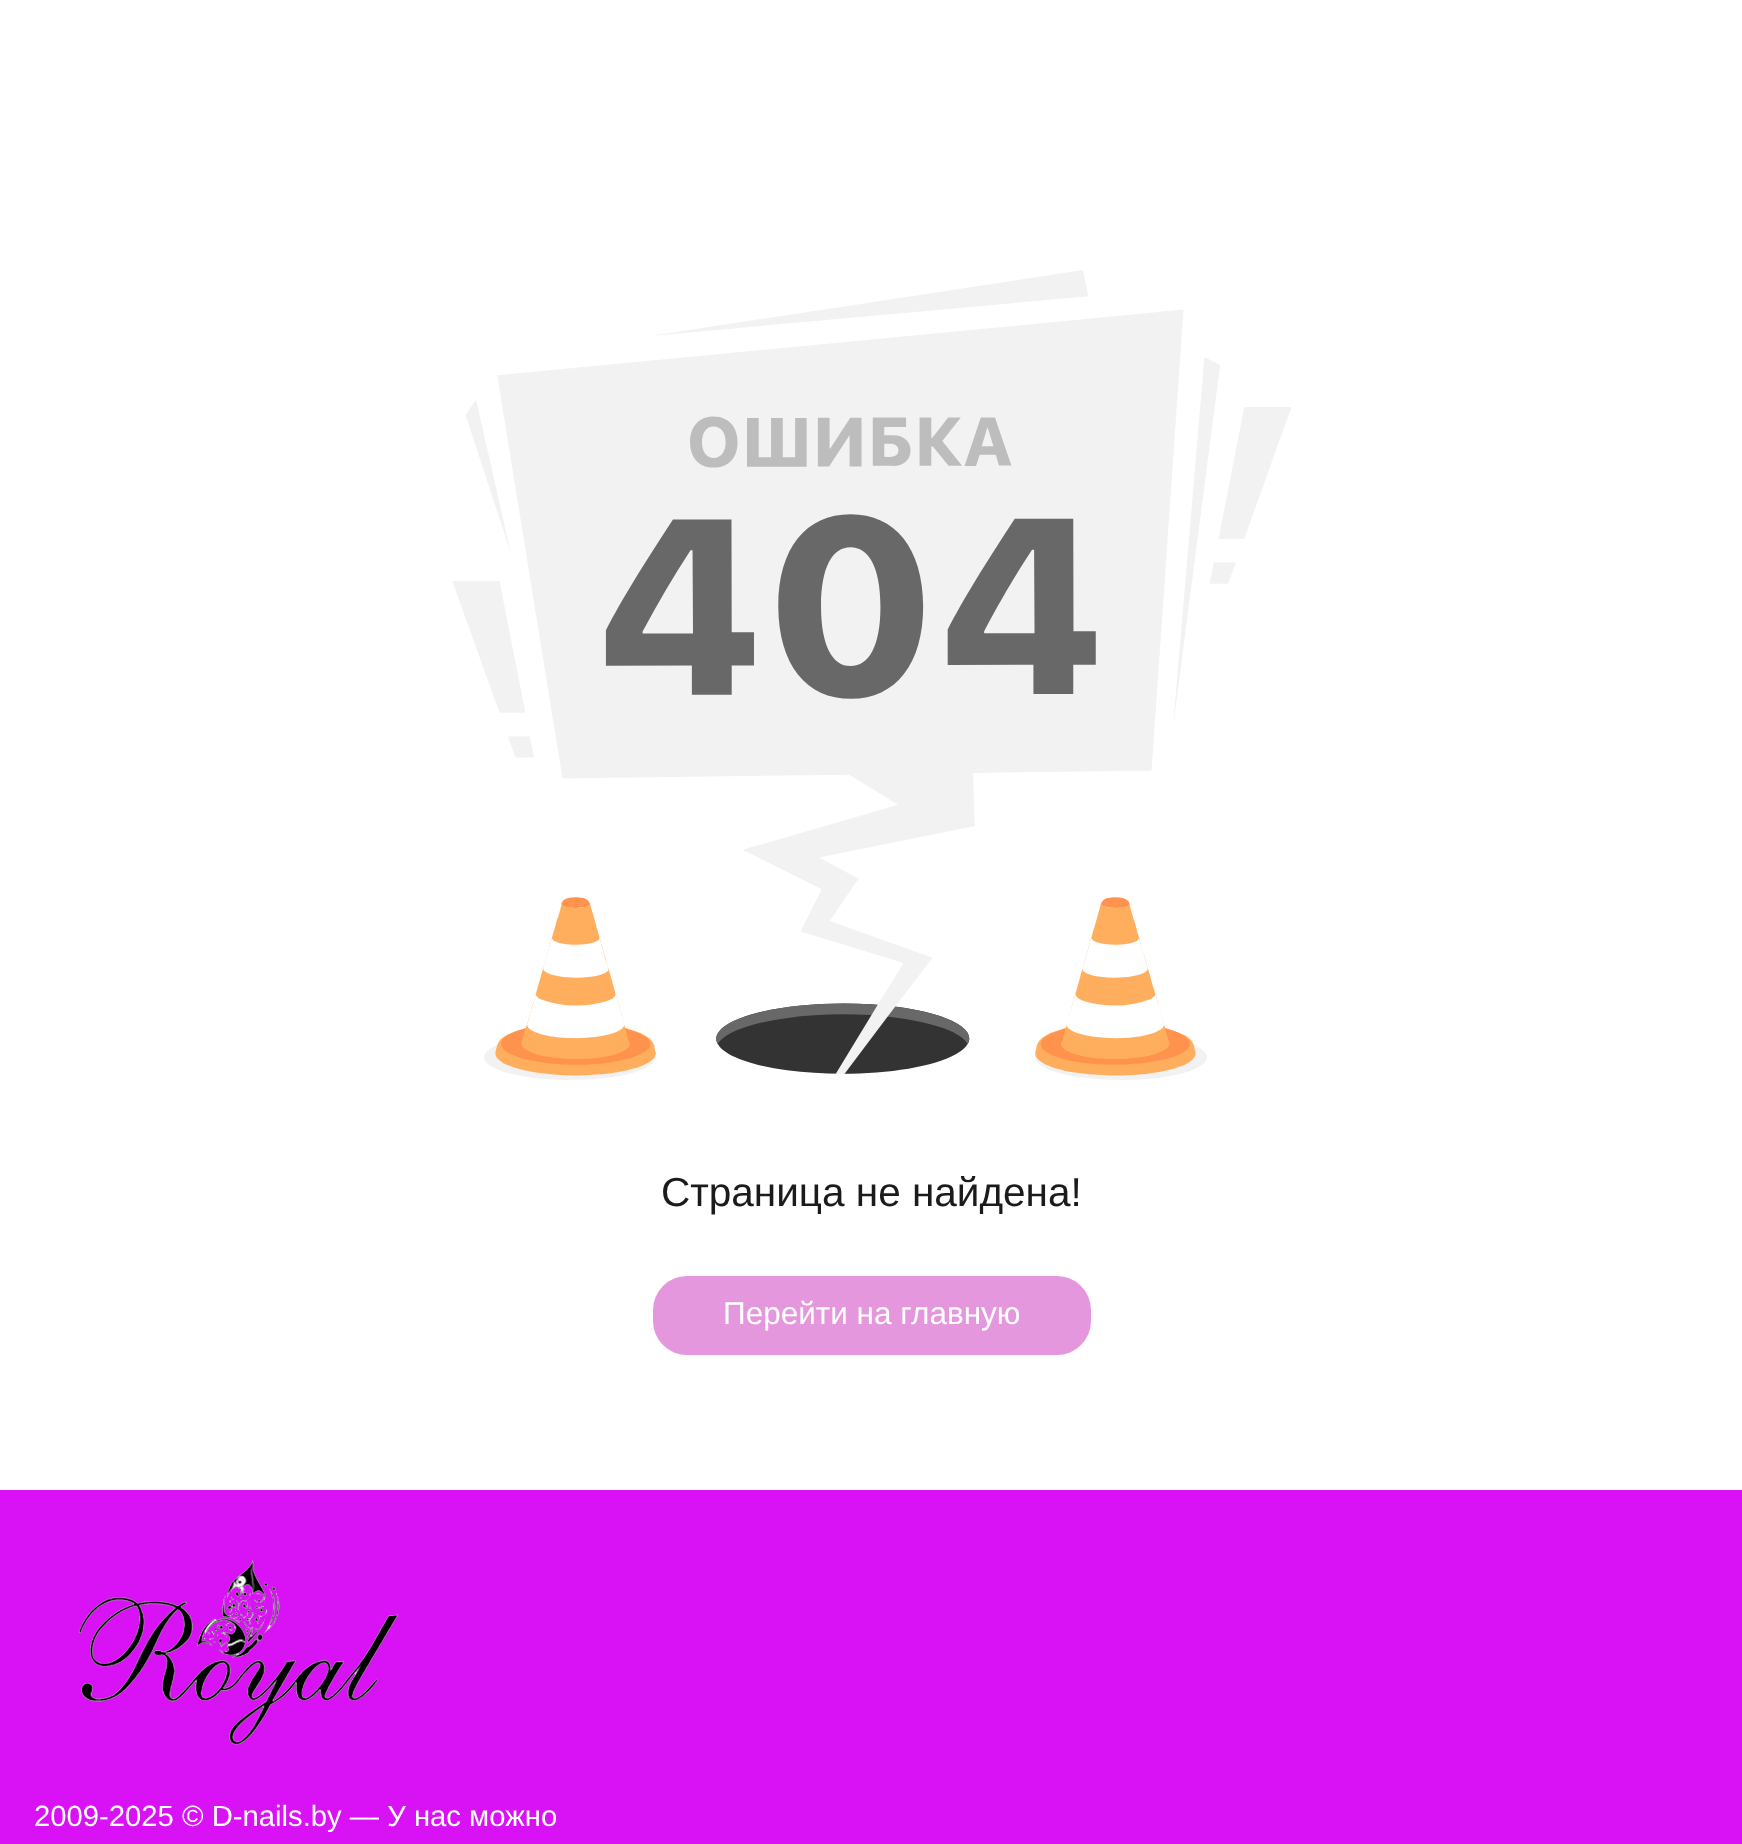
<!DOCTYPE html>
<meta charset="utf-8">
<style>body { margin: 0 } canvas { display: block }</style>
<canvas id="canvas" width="1742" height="1844"></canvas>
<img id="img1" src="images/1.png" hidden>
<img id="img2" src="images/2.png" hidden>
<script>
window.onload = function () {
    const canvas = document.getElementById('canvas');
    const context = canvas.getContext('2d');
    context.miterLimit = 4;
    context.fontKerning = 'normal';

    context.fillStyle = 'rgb(255, 255, 255)';
    context.fillRect(0, 0, 1742, 1844);
    context.drawImage(document.getElementById('img1'), 452, 270, 839, 810);
    context.fillStyle = 'rgb(229, 151, 221)';
    context.beginPath();
    context.roundRect(653, 1276, 438, 79, 34);
    context.fill();
    context.fillStyle = 'rgb(216, 18, 244)';
    context.fillRect(0, 1490, 1742, 354);
    context.drawImage(document.getElementById('img2'), 78, 1560, 320, 185);
    context.font = '40.5px Liberation Sans';
    context.fillStyle = 'rgb(27, 27, 27)';
    context.fillText('Страница не найдена!', 661, 1206);
    context.font = '31.5px Liberation Sans';
    context.fillStyle = 'rgb(255, 255, 255)';
    context.fillText('Перейти на главную', 723, 1324);
    context.font = '29.25px Liberation Sans';
    context.fillText('2009-2025 © D-nails.by — У нас можно', 34, 1826);
};
</script>
